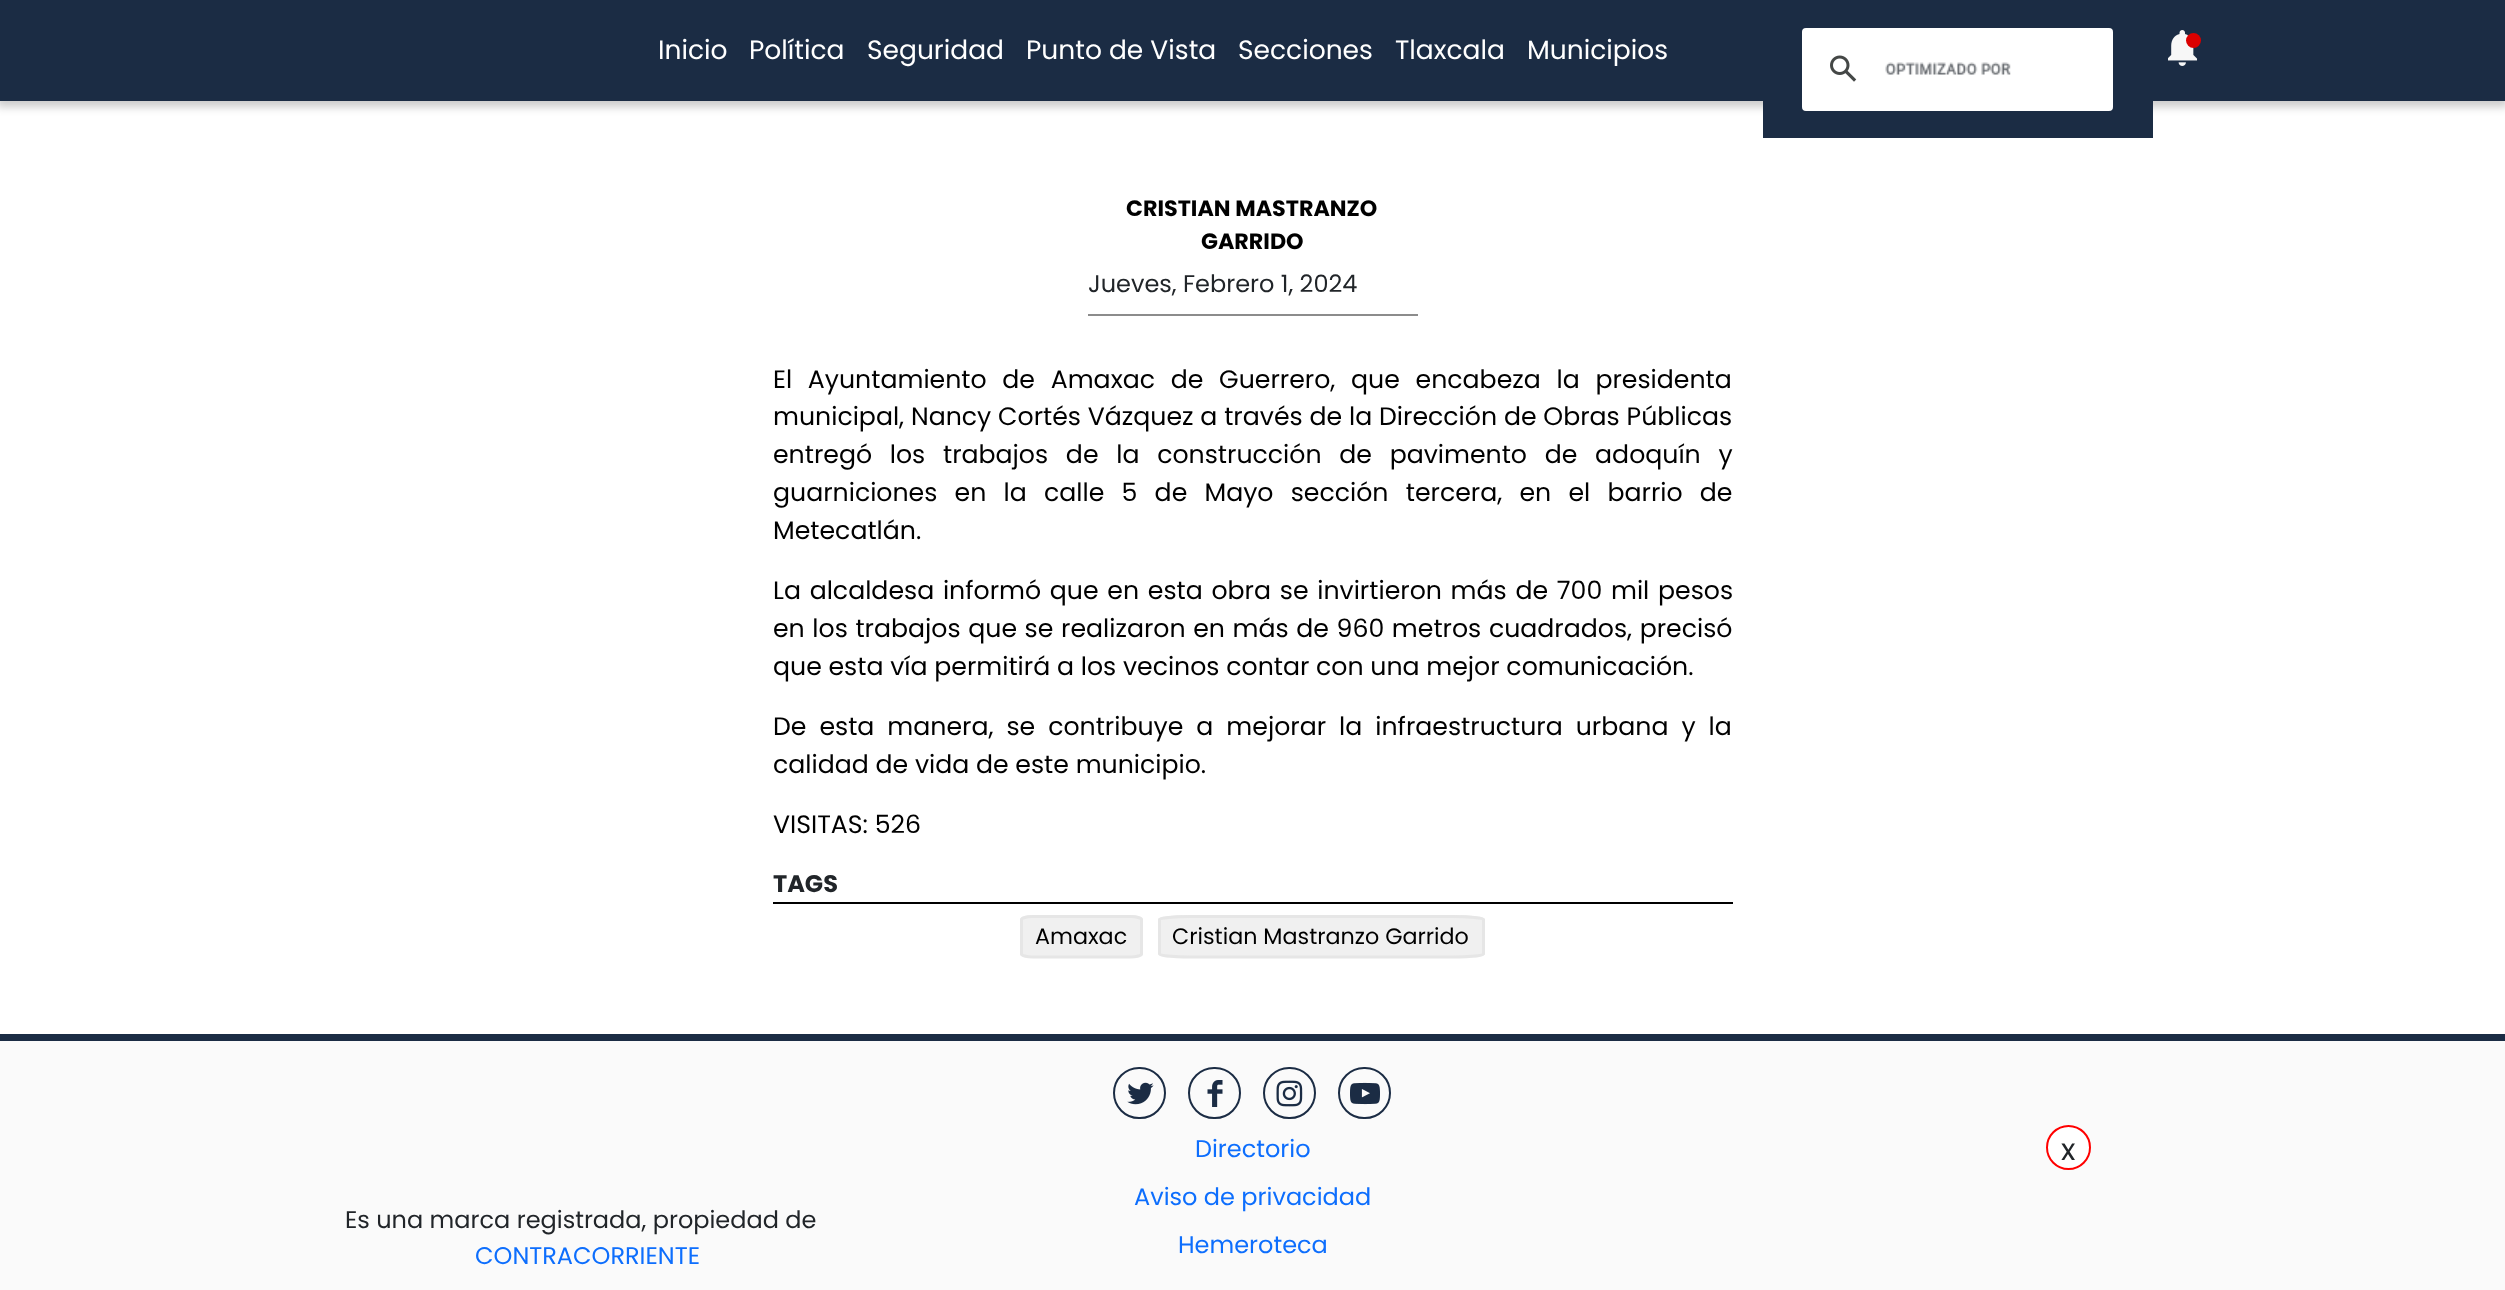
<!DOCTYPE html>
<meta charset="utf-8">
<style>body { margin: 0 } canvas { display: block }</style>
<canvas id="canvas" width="2505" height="1290"></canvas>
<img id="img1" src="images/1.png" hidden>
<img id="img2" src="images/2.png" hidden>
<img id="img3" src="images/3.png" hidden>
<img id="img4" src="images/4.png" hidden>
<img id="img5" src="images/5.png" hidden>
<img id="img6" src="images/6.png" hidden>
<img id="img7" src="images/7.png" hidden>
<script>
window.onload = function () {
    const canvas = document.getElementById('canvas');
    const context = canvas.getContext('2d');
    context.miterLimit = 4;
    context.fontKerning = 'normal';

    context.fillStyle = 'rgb(255, 255, 255)';
    context.fillRect(0, 0, 2505, 1290);
    context.fillStyle = 'rgba(0, 0, 0, 0.2)';
    context.filter = 'blur(4px)';
    context.beginPath();
    context.rect(-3, 0, 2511, 107);
    context.fill();
    context.filter = 'none';
    context.fillStyle = 'rgb(27, 44, 68)';
    context.fillRect(0, 0, 2505, 101);
    context.fillRect(1763, 101, 390, 37);
    context.fillStyle = 'rgb(255, 255, 255)';
    context.beginPath();
    context.roundRect(1801, 27, 313, 85, 5);
    context.fill();
    context.strokeStyle = 'rgb(27, 44, 68)';
    context.lineWidth = 2;
    context.stroke();
    context.drawImage(document.getElementById('img1'), 1830, 55, 27, 27);
    context.drawImage(document.getElementById('img2'), 1885, 62, 126, 13);
    context.drawImage(document.getElementById('img3'), 2168, 30, 30, 36);
    context.fillStyle = 'rgb(219, 0, 0)';
    context.beginPath();
    context.arc(2193.5, 40.5, 7.5, 0, 2 * Math.PI);
    context.fill();
    context.fillStyle = 'rgb(140, 140, 140)';
    context.fillRect(1088, 314, 330, 2);
    context.fillStyle = 'rgb(0, 0, 0)';
    context.fillRect(773, 902, 960, 2);
    context.fillStyle = 'rgb(240, 240, 240)';
    context.beginPath();
    context.moveTo(1032, 915);
    context.lineTo(1131, 915);
    context.bezierCurveTo(1137, 915, 1143, 917, 1143, 919);
    context.lineTo(1143, 954);
    context.bezierCurveTo(1143, 957, 1137, 958, 1131, 958);
    context.lineTo(1032, 958);
    context.bezierCurveTo(1026, 958, 1020, 957, 1020, 954);
    context.lineTo(1020, 919);
    context.bezierCurveTo(1020, 917, 1026, 915, 1032, 915);
    context.closePath();
    context.fill();
    context.beginPath();
    context.moveTo(1032.5, 916.5);
    context.lineTo(1130.5, 916.5);
    context.bezierCurveTo(1136.5, 916.5, 1141.5, 918, 1141.5, 919.5);
    context.lineTo(1141.5, 954);
    context.bezierCurveTo(1141.5, 955.5, 1136.5, 957, 1130.5, 957);
    context.lineTo(1032.5, 957);
    context.bezierCurveTo(1026.5, 957, 1021.5, 955.5, 1021.5, 954);
    context.lineTo(1021.5, 919.5);
    context.bezierCurveTo(1021.5, 918, 1026.5, 916.5, 1032.5, 916.5);
    context.closePath();
    context.strokeStyle = 'rgb(230, 230, 230)';
    context.lineWidth = 3;
    context.stroke();
    context.beginPath();
    context.moveTo(1191, 915);
    context.lineTo(1452, 915);
    context.bezierCurveTo(1470, 915, 1485, 917, 1485, 919);
    context.lineTo(1485, 954);
    context.bezierCurveTo(1485, 957, 1470, 958, 1452, 958);
    context.lineTo(1191, 958);
    context.bezierCurveTo(1173, 958, 1158, 957, 1158, 954);
    context.lineTo(1158, 919);
    context.bezierCurveTo(1158, 917, 1173, 915, 1191, 915);
    context.closePath();
    context.fill();
    context.beginPath();
    context.moveTo(1190.5, 916.5);
    context.lineTo(1452.5, 916.5);
    context.bezierCurveTo(1469.5, 916.5, 1483.5, 918, 1483.5, 919.5);
    context.lineTo(1483.5, 954);
    context.bezierCurveTo(1483.5, 955.5, 1469.5, 957, 1452.5, 957);
    context.lineTo(1190.5, 957);
    context.bezierCurveTo(1173.5, 957, 1159.5, 955.5, 1159.5, 954);
    context.lineTo(1159.5, 919.5);
    context.bezierCurveTo(1159.5, 918, 1173.5, 916.5, 1190.5, 916.5);
    context.closePath();
    context.stroke();
    context.fillStyle = 'rgb(250, 250, 250)';
    context.fillRect(0, 1041, 2505, 249);
    context.fillStyle = 'rgb(255, 255, 255)';
    context.beginPath();
    context.arc(2068.5, 1147.5, 21.5, 0, 2 * Math.PI);
    context.fill();
    context.strokeStyle = 'rgb(255, 0, 0)';
    context.lineWidth = 2;
    context.stroke();
    context.fillStyle = 'rgb(27, 44, 68)';
    context.fillRect(0, 1034, 2505, 7);
    context.beginPath();
    context.roundRect(1114, 1068, 51, 50, 25);
    context.strokeStyle = 'rgb(27, 44, 68)';
    context.stroke();
    context.drawImage(document.getElementById('img4'), 1127, 1082, 27, 23);
    context.beginPath();
    context.roundRect(1189, 1068, 51, 50, 25);
    context.stroke();
    context.drawImage(document.getElementById('img5'), 1207, 1080, 16, 27);
    context.beginPath();
    context.roundRect(1264, 1068, 51, 50, 25);
    context.stroke();
    context.drawImage(document.getElementById('img6'), 1276, 1080, 27, 27);
    context.beginPath();
    context.roundRect(1339, 1068, 51, 50, 25);
    context.stroke();
    context.drawImage(document.getElementById('img7'), 1350, 1082, 30, 23);
    context.font = '26.5px Poppins';
    context.fillStyle = 'rgb(255, 255, 255)';
    context.fillText('Inicio', 658, 59);
    context.fillText('Política', 749, 59);
    context.fillText('Seguridad', 867, 59);
    context.fillText('Punto de Vista', 1026, 59);
    context.fillText('Secciones', 1238, 59);
    context.fillText('Tlaxcala', 1395, 59);
    context.fillText('Municipios', 1527, 59);
    context.font = 'bold 22.25px Poppins';
    context.fillStyle = 'rgb(0, 0, 0)';
    context.fillText('CRISTIAN MASTRANZO', 1126, 216);
    context.fillText('GARRIDO', 1201, 249);
    context.font = '24px Poppins';
    context.fillStyle = 'rgb(33, 37, 41)';
    context.fillText('Jueves, Febrero 1, 2024', 1088, 292);
    context.wordSpacing = '9px';
    context.font = '25.2px Poppins';
    context.fillStyle = 'rgb(0, 0, 0)';
    context.fillText('El Ayuntamiento de Amaxac de Guerrero, que encabeza la presidenta', 773, 388);
    context.wordSpacing = '0.1px';
    context.fillText('municipal, Nancy Cortés Vázquez a través de la Dirección de Obras Públicas', 773, 425);
    context.wordSpacing = '11px';
    context.fillText('entregó los trabajos de la construcción de pavimento de adoquín y', 773, 463);
    context.wordSpacing = '10.5px';
    context.fillText('guarniciones en la calle 5 de Mayo sección tercera, en el barrio de', 773, 501);
    context.wordSpacing = '0px';
    context.fillText('Metecatlán.', 773, 539);
    context.wordSpacing = '2px';
    context.fillText('La alcaldesa informó que en esta obra se invirtieron más de 700 mil pesos', 773, 599);
    context.wordSpacing = '0.9px';
    context.fillText('en los trabajos que se realizaron en más de 960 metros cuadrados, precisó', 773, 637);
    context.wordSpacing = '0px';
    context.fillText('que esta vía permitirá a los vecinos contar con una mejor comunicación.', 773, 675);
    context.wordSpacing = '6.25px';
    context.fillText('De esta manera, se contribuye a mejorar la infraestructura urbana y la', 773, 735);
    context.wordSpacing = '0px';
    context.fillText('calidad de vida de este municipio.', 773, 773);
    context.fillText('VISITAS: 526', 773, 833);
    context.font = 'bold 24px Poppins';
    context.fillStyle = 'rgb(33, 37, 41)';
    context.fillText('TAGS', 773, 892);
    context.font = '22.25px Poppins';
    context.fillStyle = 'rgb(0, 0, 0)';
    context.fillText('Amaxac', 1035, 944);
    context.fillText('Cristian Mastranzo Garrido', 1172, 944);
    context.font = '30px Poppins';
    context.fillStyle = 'rgb(33, 37, 41)';
    context.fillText('x', 2061, 1160);
    context.font = '24px Poppins';
    context.fillText('Es una marca registrada, propiedad de', 345, 1228);
    context.fillStyle = 'rgb(13, 110, 253)';
    context.fillText('CONTRACORRIENTE', 475, 1264);
    context.fillText('Directorio', 1195, 1157);
    context.fillText('Aviso de privacidad', 1134, 1205);
    context.fillText('Hemeroteca', 1178, 1253);
};
</script>
